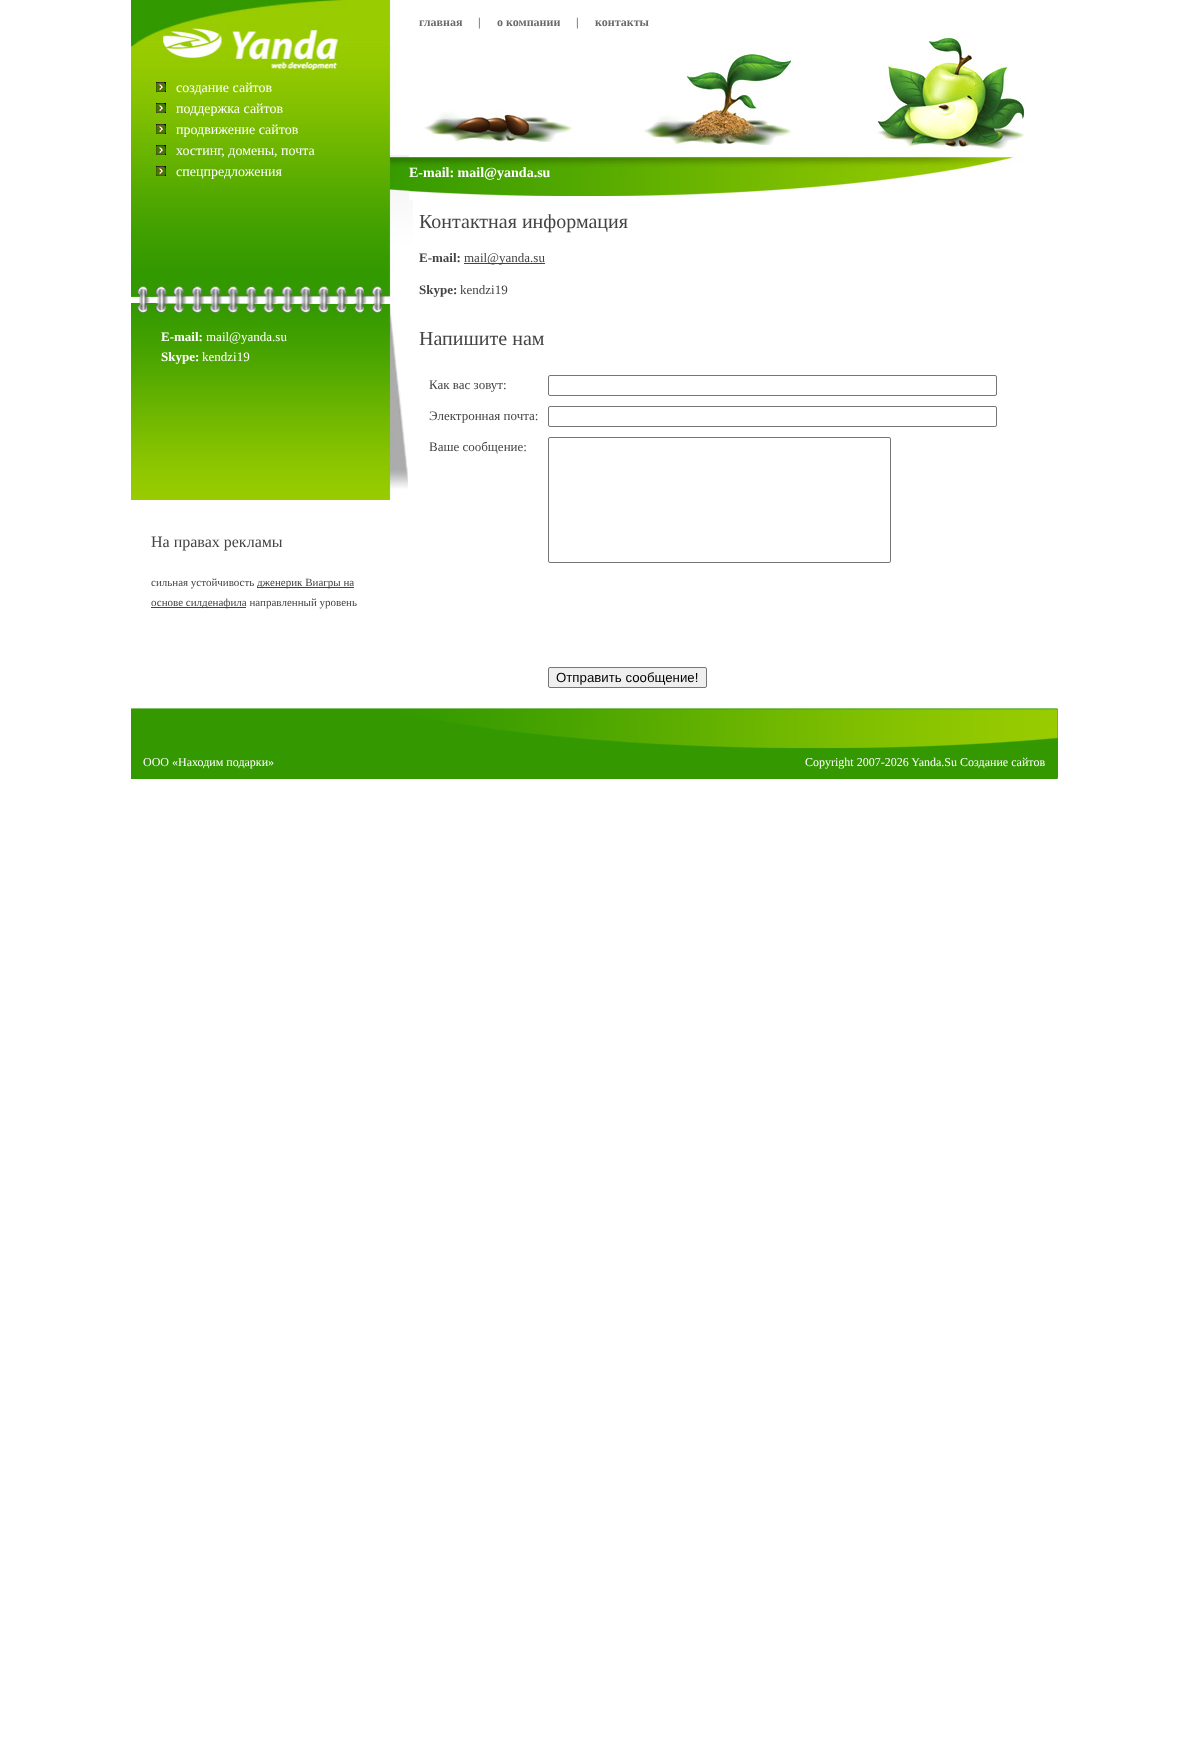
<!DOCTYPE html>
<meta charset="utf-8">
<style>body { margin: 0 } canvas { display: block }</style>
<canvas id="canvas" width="1188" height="1745"></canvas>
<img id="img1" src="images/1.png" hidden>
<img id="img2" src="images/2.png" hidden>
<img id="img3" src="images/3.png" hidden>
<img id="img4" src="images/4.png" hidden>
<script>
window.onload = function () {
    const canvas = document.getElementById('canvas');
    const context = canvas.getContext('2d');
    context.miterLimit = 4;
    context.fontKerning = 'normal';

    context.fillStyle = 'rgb(255, 255, 255)';
    context.fillRect(0, 0, 1188, 1745);
    context.drawImage(document.getElementById('img1'), 131, 0, 282, 500);
    context.drawImage(document.getElementById('img2'), 156, 82, 10, 10);
    context.drawImage(document.getElementById('img2'), 156, 103, 10, 10);
    context.drawImage(document.getElementById('img2'), 156, 124, 10, 10);
    context.drawImage(document.getElementById('img2'), 156, 145, 10, 10);
    context.drawImage(document.getElementById('img2'), 156, 166, 10, 10);
    context.fillStyle = 'rgb(68, 68, 68)';
    context.fillRect(257, 587, 97, 1);
    context.fillRect(151, 607, 95, 1);
    context.drawImage(document.getElementById('img3'), 409, 33, 616, 167);
    context.fillRect(464, 263, 81, 1);
    context.beginPath();
    context.roundRect(548.5, 375.5, 448, 20, 1.5);
    context.strokeStyle = 'rgb(118, 118, 118)';
    context.stroke();
    context.beginPath();
    context.roundRect(548.5, 406.5, 448, 20, 1.5);
    context.stroke();
    context.beginPath();
    context.roundRect(548.5, 437.5, 342, 125, 1.5);
    context.stroke();
    context.fillStyle = 'rgb(239, 239, 239)';
    context.beginPath();
    context.roundRect(548.5, 667.5, 158, 20, 1.5);
    context.fill();
    context.stroke();
    context.drawImage(document.getElementById('img4'), 131, 708, 927, 71);
    context.font = '14px Liberation Serif';
    context.fillStyle = 'rgb(255, 255, 255)';
    context.fillText('создание сайтов', 176, 92);
    context.fillText('поддержка сайтов', 176, 113);
    context.fillText('продвижение сайтов', 176, 134);
    context.fillText('хостинг, домены, почта', 176, 155);
    context.fillText('спецпредложения', 176, 176);
    context.font = 'bold 13px Liberation Serif';
    context.fillText('E-mail:', 161, 341);
    context.font = '13px Liberation Serif';
    context.fillText('mail@yanda.su', 206, 341);
    context.font = 'bold 13px Liberation Serif';
    context.fillText('Skype:', 161, 361);
    context.font = '13px Liberation Serif';
    context.fillText('kendzi19', 202, 361);
    context.font = '16px Liberation Serif';
    context.fillStyle = 'rgb(68, 68, 68)';
    context.fillText('На правах рекламы', 151, 547);
    context.font = '11px Liberation Serif';
    context.fillText('сильная устойчивость', 151, 586);
    context.fillText('дженерик Виагры на', 257, 586);
    context.fillText('основе силденафила направленный уровень', 151, 606);
    context.font = 'bold 12px Liberation Serif';
    context.fillStyle = 'rgb(106, 106, 106)';
    context.fillText('главная', 419, 26);
    context.fillText('|', 478, 26);
    context.fillText('о компании', 497, 26);
    context.fillText('|', 576, 26);
    context.fillText('контакты', 595, 26);
    context.font = 'bold 14px Liberation Serif';
    context.fillStyle = 'rgb(255, 255, 255)';
    context.fillText('E-mail: mail@yanda.su', 409, 177);
    context.font = '20px Liberation Serif';
    context.fillStyle = 'rgb(68, 68, 68)';
    context.fillText('Контактная информация', 419, 228);
    context.font = 'bold 13px Liberation Serif';
    context.fillText('E-mail:', 419, 262);
    context.font = '13px Liberation Serif';
    context.fillText('mail@yanda.su', 464, 262);
    context.font = 'bold 13px Liberation Serif';
    context.fillText('Skype:', 419, 294);
    context.font = '13px Liberation Serif';
    context.fillText('kendzi19', 460, 294);
    context.font = '20px Liberation Serif';
    context.fillText('Напишите нам', 419, 345);
    context.font = '13px Liberation Serif';
    context.fillText('Как вас зовут:', 429, 389);
    context.fillText('Электронная почта:', 429, 420);
    context.fillText('Ваше сообщение:', 429, 451);
    context.font = '13.25px Liberation Sans';
    context.fillStyle = 'rgb(0, 0, 0)';
    context.fillText('Отправить сообщение!', 556, 682);
    context.font = '12px Liberation Serif';
    context.fillStyle = 'rgb(255, 255, 255)';
    context.fillText('ООО «Находим подарки»', 143, 766);
    context.fillText('Copyright 2007-2026 Yanda.Su Создание сайтов', 805, 766);
};
</script>
